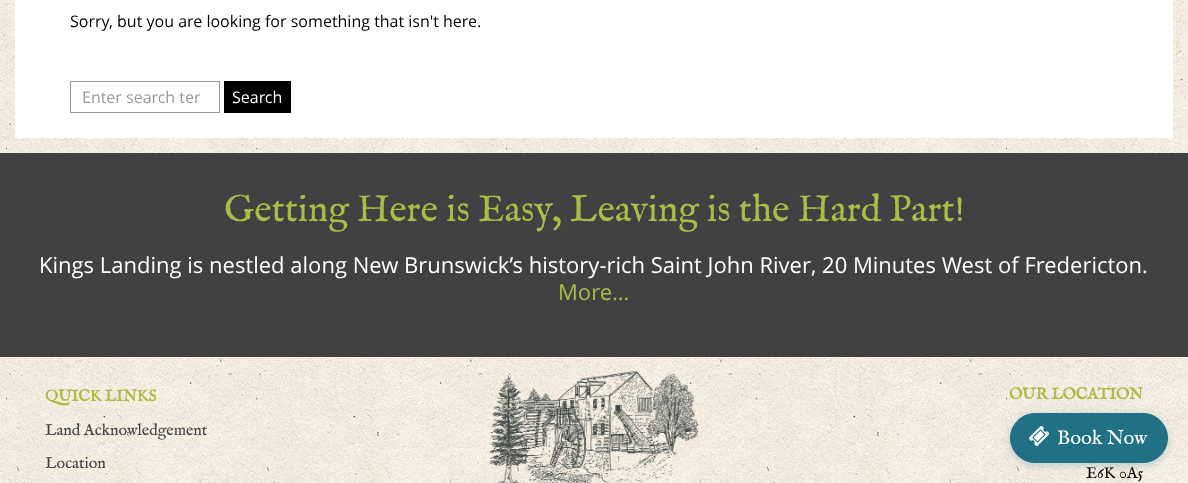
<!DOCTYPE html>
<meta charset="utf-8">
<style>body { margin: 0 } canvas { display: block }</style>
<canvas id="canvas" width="1188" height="483"></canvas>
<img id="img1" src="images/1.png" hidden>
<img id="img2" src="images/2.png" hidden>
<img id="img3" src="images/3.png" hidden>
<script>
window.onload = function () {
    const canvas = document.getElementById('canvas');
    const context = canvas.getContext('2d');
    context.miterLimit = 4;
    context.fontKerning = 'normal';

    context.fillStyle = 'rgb(255, 255, 255)';
    context.fillRect(0, 0, 1188, 483);
    context.drawImage(document.getElementById('img1'), 0, 0, 1188, 483);
    context.fillRect(15, 0, 1158, 138);
    context.strokeStyle = 'rgb(153, 153, 153)';
    context.strokeRect(70.5, 81.5, 149, 31);
    context.fillStyle = 'rgb(0, 0, 0)';
    context.fillRect(224, 81, 67, 32);
    context.fillStyle = 'rgb(65, 64, 66)';
    context.fillRect(0, 153, 1188, 204);
    context.drawImage(document.getElementById('img2'), 489, 371, 210, 112);
    context.fillStyle = 'rgba(32, 113, 134, 0.3)';
    context.filter = 'blur(5px)';
    context.beginPath();
    context.roundRect(1010, 415, 158, 50, 25);
    context.fill();
    context.filter = 'none';
    context.fillStyle = 'rgb(32, 113, 134)';
    context.beginPath();
    context.roundRect(1010.5, 413.5, 157, 49, 24.5);
    context.fill();
    context.strokeStyle = 'rgb(32, 113, 134)';
    context.stroke();
    context.drawImage(document.getElementById('img3'), 1029, 426, 20, 20);
    context.font = '16px Open Sans';
    context.fillStyle = 'rgb(0, 0, 0)';
    context.fillText('Sorry, but you are looking for something that isn\'t here.', 70, 27);
    context.fillStyle = 'rgb(153, 153, 153)';
    context.fillText('Enter search ter', 82, 103);
    context.fillStyle = 'rgb(255, 255, 255)';
    context.fillText('Search', 232, 103);
    context.font = '38px IM FELL English';
    context.fillStyle = 'rgb(170, 188, 69)';
    context.fillText('Getting Here is Easy, Leaving is the Hard Part!', 224, 221);
    context.font = '22px Open Sans';
    context.fillStyle = 'rgb(255, 255, 255)';
    context.fillText('Kings Landing is nestled along New Brunswick’s history-rich Saint John River, 20 Minutes West of Fredericton.', 39, 273);
    context.fillStyle = 'rgb(170, 188, 69)';
    context.fillText('More…', 558, 300);
    context.font = 'bold 16px IM FELL English';
    context.fillText('QUICK LINKS', 45, 401);
    context.font = '16px IM FELL English';
    context.fillStyle = 'rgb(65, 64, 66)';
    context.fillText('Land Acknowledgement', 45, 435);
    context.fillText('Location', 45, 468);
    context.font = 'bold 16px IM FELL English';
    context.fillStyle = 'rgb(170, 188, 69)';
    context.fillText('OUR LOCATION', 1009, 399);
    context.font = '16px IM FELL English';
    context.fillStyle = 'rgb(0, 0, 0)';
    context.fillText('E6K 0A5', 1086, 478);
    context.font = '20px IM FELL English';
    context.fillStyle = 'rgb(255, 255, 255)';
    context.fillText('Book Now', 1057, 444);
};
</script>
